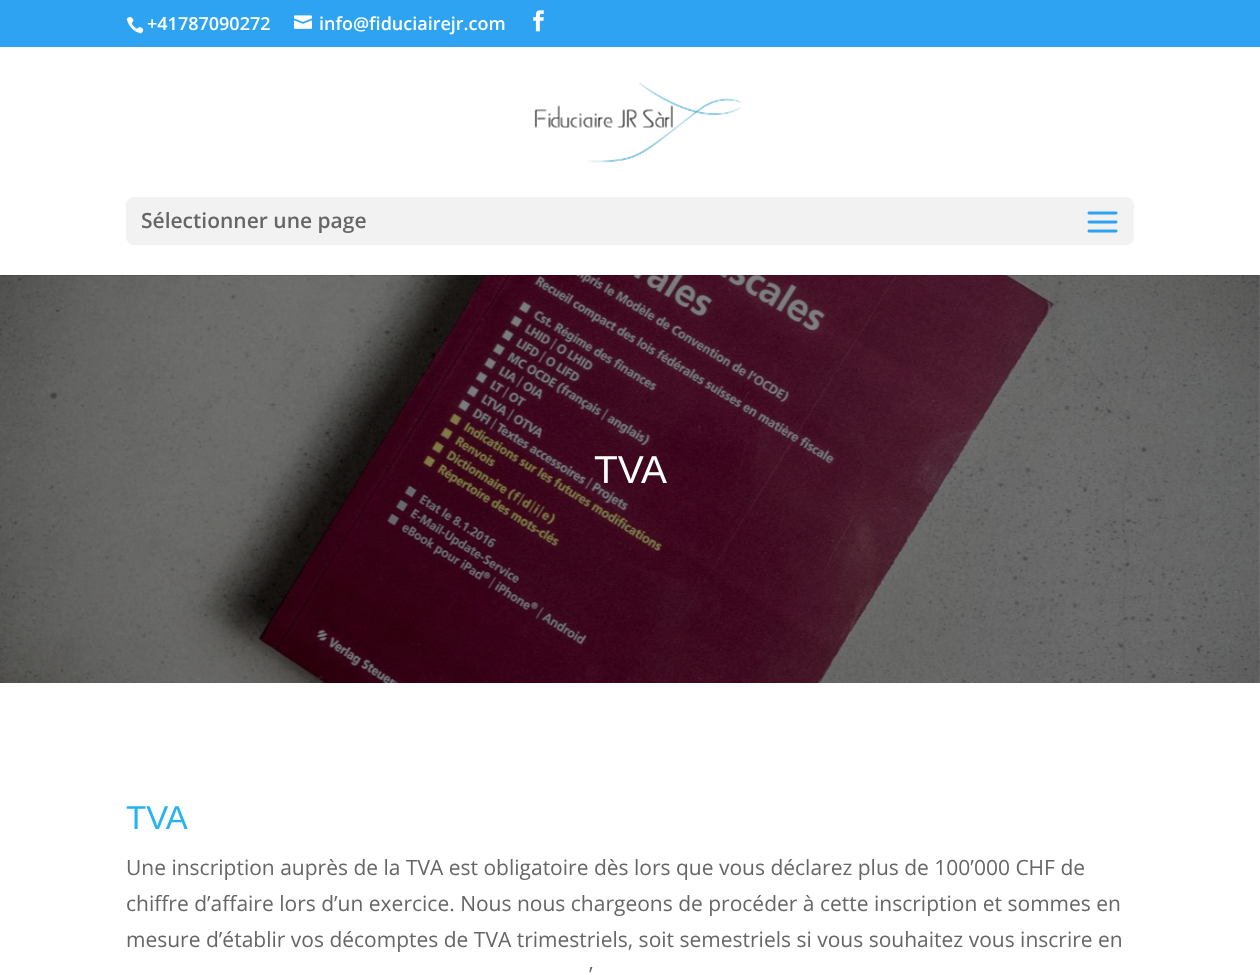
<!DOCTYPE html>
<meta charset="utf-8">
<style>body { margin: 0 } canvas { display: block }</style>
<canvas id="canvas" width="1260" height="975"></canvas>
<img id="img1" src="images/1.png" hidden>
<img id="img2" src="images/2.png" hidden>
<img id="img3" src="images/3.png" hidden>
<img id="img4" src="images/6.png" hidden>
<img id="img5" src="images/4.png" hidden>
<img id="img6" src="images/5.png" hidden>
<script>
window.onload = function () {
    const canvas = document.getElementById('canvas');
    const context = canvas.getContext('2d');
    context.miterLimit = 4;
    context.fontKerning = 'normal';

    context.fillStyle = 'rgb(255, 255, 255)';
    context.fillRect(0, 0, 1260, 975);
    context.fillStyle = 'rgb(46, 163, 242)';
    context.fillRect(0, 0, 1260, 47);
    context.drawImage(document.getElementById('img1'), 126, 16, 18, 18);
    context.drawImage(document.getElementById('img2'), 294, 15, 18, 14);
    context.drawImage(document.getElementById('img3'), 533, 10, 11, 22);
    context.drawImage(document.getElementById('img4'), 0, 275, 1260, 408);
    context.fillStyle = 'rgba(0, 0, 0, 0.1)';
    context.fillRect(0, 275, 1260, 1);
    context.drawImage(document.getElementById('img5'), 534, 82, 207, 81);
    context.fillStyle = 'rgb(242, 242, 242)';
    context.beginPath();
    context.roundRect(126, 197, 1008, 48, 8);
    context.fill();
    context.drawImage(document.getElementById('img6'), 1087, 211, 31, 22);
    context.font = '600 18px Open Sans';
    context.fillStyle = 'rgb(255, 255, 255)';
    context.fillText('+41787090272', 147, 30);
    context.fillText('info@fiduciairejr.com', 319, 30);
    context.font = '600 21px Open Sans';
    context.fillStyle = 'rgb(102, 102, 102)';
    context.fillText('Sélectionner une page', 141, 228);
    context.font = '39px Liberation Sans';
    context.fillStyle = 'rgb(255, 255, 255)';
    context.fillText('TVA', 594, 483);
    context.font = '33px Liberation Sans';
    context.fillStyle = 'rgb(38, 179, 239)';
    context.fillText('TVA', 126, 829);
    context.font = '21px Open Sans';
    context.fillStyle = 'rgb(102, 102, 102)';
    context.fillText('Une inscription auprès de la TVA est obligatoire dès lors que vous déclarez plus de 100’000 CHF de', 126, 875);
    context.fillText('chiffre d’affaire lors d’un exercice. Nous nous chargeons de procéder à cette inscription et sommes en', 126, 911);
    context.fillText('mesure d’établir vos décomptes de TVA trimestriels, soit semestriels si vous souhaitez vous inscrire en', 126, 947);
    context.fillText('’', 589, 982);
};
</script>
